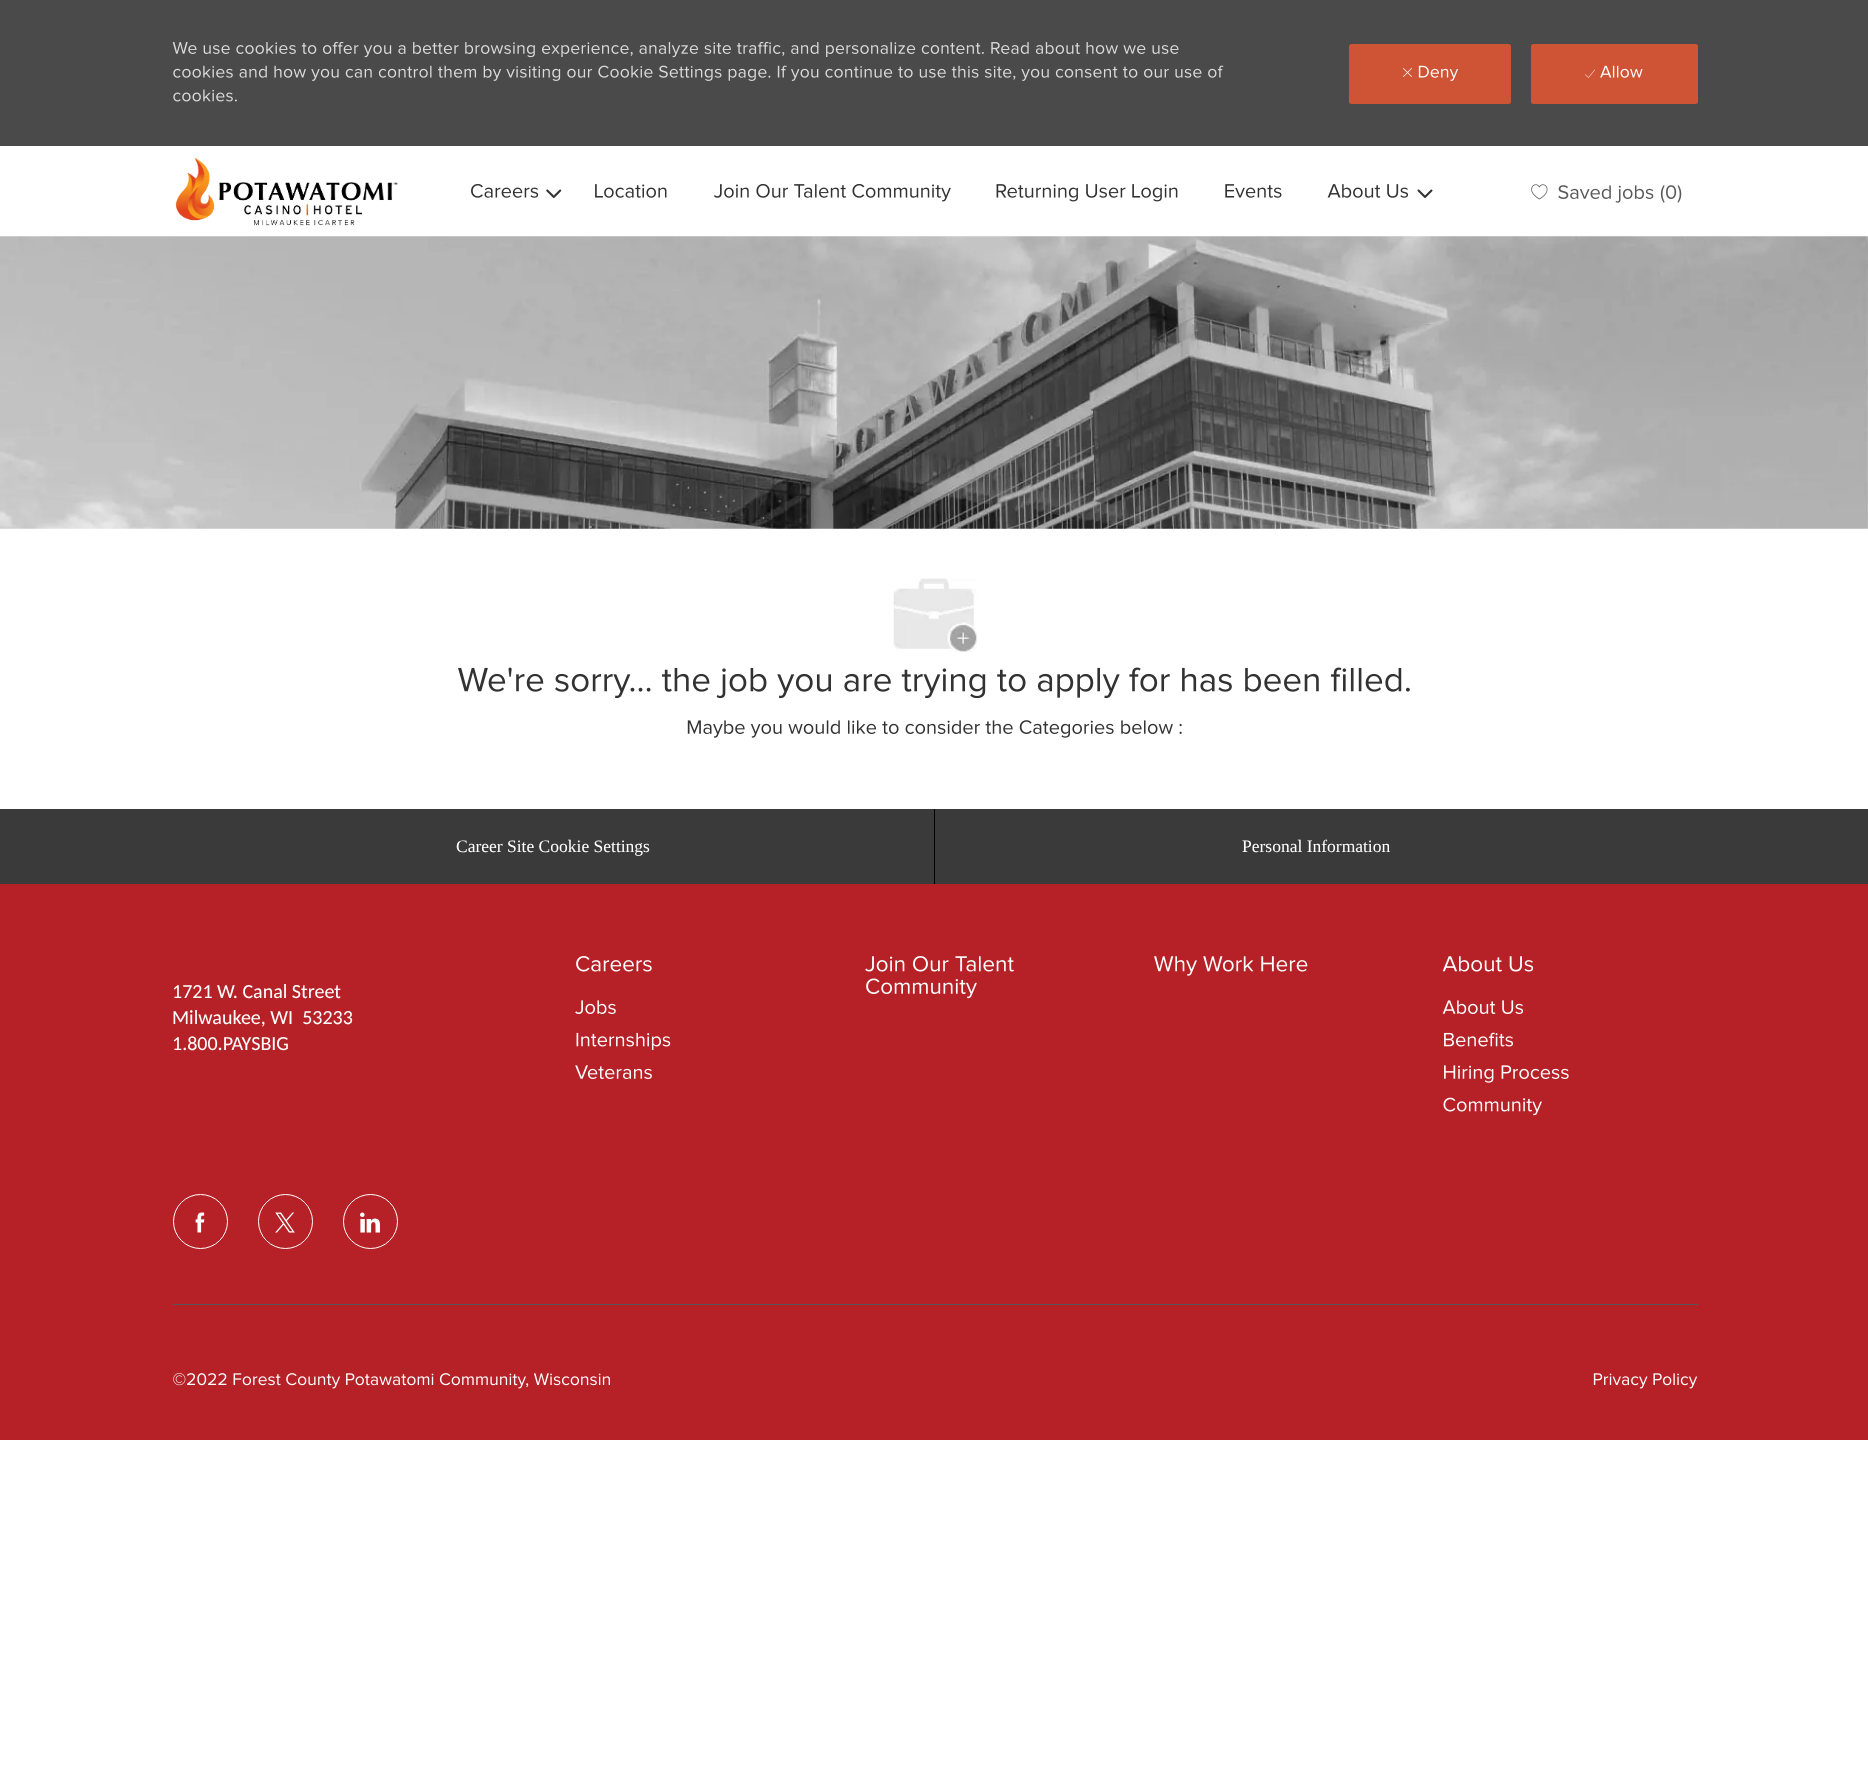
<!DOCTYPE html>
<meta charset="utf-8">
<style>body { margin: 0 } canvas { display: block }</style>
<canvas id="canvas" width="1868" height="1765"></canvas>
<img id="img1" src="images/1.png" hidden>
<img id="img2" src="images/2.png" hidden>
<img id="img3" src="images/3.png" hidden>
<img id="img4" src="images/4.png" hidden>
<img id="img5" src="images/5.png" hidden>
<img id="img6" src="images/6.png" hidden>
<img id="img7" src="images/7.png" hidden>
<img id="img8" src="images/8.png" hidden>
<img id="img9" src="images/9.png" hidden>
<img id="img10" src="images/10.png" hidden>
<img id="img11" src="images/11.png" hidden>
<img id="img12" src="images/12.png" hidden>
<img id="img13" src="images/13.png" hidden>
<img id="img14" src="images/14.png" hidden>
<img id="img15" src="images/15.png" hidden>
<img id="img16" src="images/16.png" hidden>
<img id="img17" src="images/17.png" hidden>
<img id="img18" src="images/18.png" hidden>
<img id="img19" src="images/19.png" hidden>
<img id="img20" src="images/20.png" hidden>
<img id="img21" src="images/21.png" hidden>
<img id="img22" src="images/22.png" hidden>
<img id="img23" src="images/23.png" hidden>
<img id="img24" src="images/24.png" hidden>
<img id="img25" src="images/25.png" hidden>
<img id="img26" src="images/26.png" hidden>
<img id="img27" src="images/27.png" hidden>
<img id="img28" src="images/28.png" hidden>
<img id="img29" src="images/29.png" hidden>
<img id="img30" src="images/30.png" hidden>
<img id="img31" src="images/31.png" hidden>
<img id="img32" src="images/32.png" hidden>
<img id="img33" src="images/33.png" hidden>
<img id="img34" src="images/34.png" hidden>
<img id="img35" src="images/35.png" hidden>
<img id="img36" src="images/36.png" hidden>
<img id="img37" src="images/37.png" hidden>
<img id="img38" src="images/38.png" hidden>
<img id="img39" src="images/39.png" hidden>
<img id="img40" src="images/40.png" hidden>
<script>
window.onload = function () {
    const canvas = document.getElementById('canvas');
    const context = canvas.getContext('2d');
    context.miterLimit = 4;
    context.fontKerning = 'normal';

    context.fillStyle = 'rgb(255, 255, 255)';
    context.fillRect(0, 0, 1868, 1765);
    context.fillStyle = 'rgb(74, 74, 74)';
    context.fillRect(0, 0, 1868, 146);
    context.drawImage(document.getElementById('img1'), 172, 41, 1007, 17);
    context.drawImage(document.getElementById('img2'), 173, 65, 1051, 16);
    context.drawImage(document.getElementById('img3'), 173, 89, 64, 13);
    context.fillStyle = 'rgb(207, 84, 53)';
    context.beginPath();
    context.roundRect(1349, 44, 162, 60, 2.5);
    context.fill();
    context.drawImage(document.getElementById('img4'), 1403, 68, 9, 9);
    context.drawImage(document.getElementById('img5'), 1418, 65, 41, 16);
    context.beginPath();
    context.roundRect(1531, 44, 167, 60, 2.5);
    context.fill();
    context.drawImage(document.getElementById('img6'), 1585, 69, 10, 9);
    context.drawImage(document.getElementById('img7'), 1600, 65, 43, 13);
    context.drawImage(document.getElementById('img8'), 175, 157, 223, 69);
    context.drawImage(document.getElementById('img9'), 471, 183, 68, 15);
    context.drawImage(document.getElementById('img10'), 546, 189, 16, 9);
    context.drawImage(document.getElementById('img11'), 595, 184, 72, 14);
    context.drawImage(document.getElementById('img12'), 714, 183, 237, 19);
    context.drawImage(document.getElementById('img13'), 996, 184, 182, 18);
    context.drawImage(document.getElementById('img14'), 1225, 184, 57, 14);
    context.drawImage(document.getElementById('img15'), 1327, 184, 81, 14);
    context.drawImage(document.getElementById('img16'), 1417, 189, 16, 9);
    context.drawImage(document.getElementById('img17'), 1531, 184, 17, 16);
    context.drawImage(document.getElementById('img18'), 1558, 185, 96, 18);
    context.drawImage(document.getElementById('img19'), 1660, 185, 22, 18);
    context.drawImage(document.getElementById('img20'), 0, 236, 1868, 293);
    context.drawImage(document.getElementById('img21'), 893, 578, 84, 74);
    context.drawImage(document.getElementById('img22'), 458, 667, 952, 32);
    context.drawImage(document.getElementById('img23'), 687, 720, 495, 18);
    context.fillStyle = 'rgb(181, 33, 38)';
    context.fillRect(0, 884, 1868, 556);
    context.fillStyle = 'rgb(58, 58, 58)';
    context.fillRect(0, 809, 1868, 75);
    context.fillStyle = 'rgb(0, 0, 0)';
    context.fillRect(934, 809, 1, 75);
    context.drawImage(document.getElementById('img24'), 576, 956, 76, 16);
    context.drawImage(document.getElementById('img25'), 575, 1000, 41, 14);
    context.drawImage(document.getElementById('img26'), 576, 1032, 95, 18);
    context.drawImage(document.getElementById('img27'), 575, 1065, 77, 14);
    context.drawImage(document.getElementById('img28'), 865, 956, 149, 16);
    context.drawImage(document.getElementById('img29'), 866, 978, 111, 21);
    context.drawImage(document.getElementById('img30'), 1154, 956, 154, 20);
    context.drawImage(document.getElementById('img31'), 1442, 956, 92, 16);
    context.drawImage(document.getElementById('img32'), 1442, 1000, 81, 14);
    context.drawImage(document.getElementById('img33'), 1444, 1032, 69, 15);
    context.drawImage(document.getElementById('img34'), 1444, 1065, 125, 18);
    context.drawImage(document.getElementById('img35'), 1443, 1097, 99, 19);
    context.beginPath();
    context.arc(200.5, 1221.5, 27, 0, 2 * Math.PI);
    context.strokeStyle = 'rgb(255, 255, 255)';
    context.stroke();
    context.drawImage(document.getElementById('img36'), 195, 1212, 10, 21);
    context.beginPath();
    context.arc(285.5, 1221.5, 27, 0, 2 * Math.PI);
    context.stroke();
    context.drawImage(document.getElementById('img37'), 275, 1212, 20, 21);
    context.beginPath();
    context.arc(370.5, 1221.5, 27, 0, 2 * Math.PI);
    context.stroke();
    context.drawImage(document.getElementById('img38'), 360, 1212, 20, 21);
    context.fillStyle = 'rgb(85, 85, 85)';
    context.fillRect(173, 1304, 1525, 1);
    context.drawImage(document.getElementById('img39'), 173, 1373, 437, 16);
    context.drawImage(document.getElementById('img40'), 1593, 1373, 105, 16);
    context.font = '17.5px Liberation Serif';
    context.fillStyle = 'rgb(255, 255, 255)';
    context.fillText('Career Site Cookie Settings', 456, 852);
    context.fillText('Personal Information', 1242, 852);
    context.font = '20px Carlito';
    context.fillText('1721 W. Canal Street', 172, 998);
    context.fillText('Milwaukee, WI  53233', 172, 1024);
    context.fillText('1.800.PAYSBIG', 172, 1050);
};
</script>
